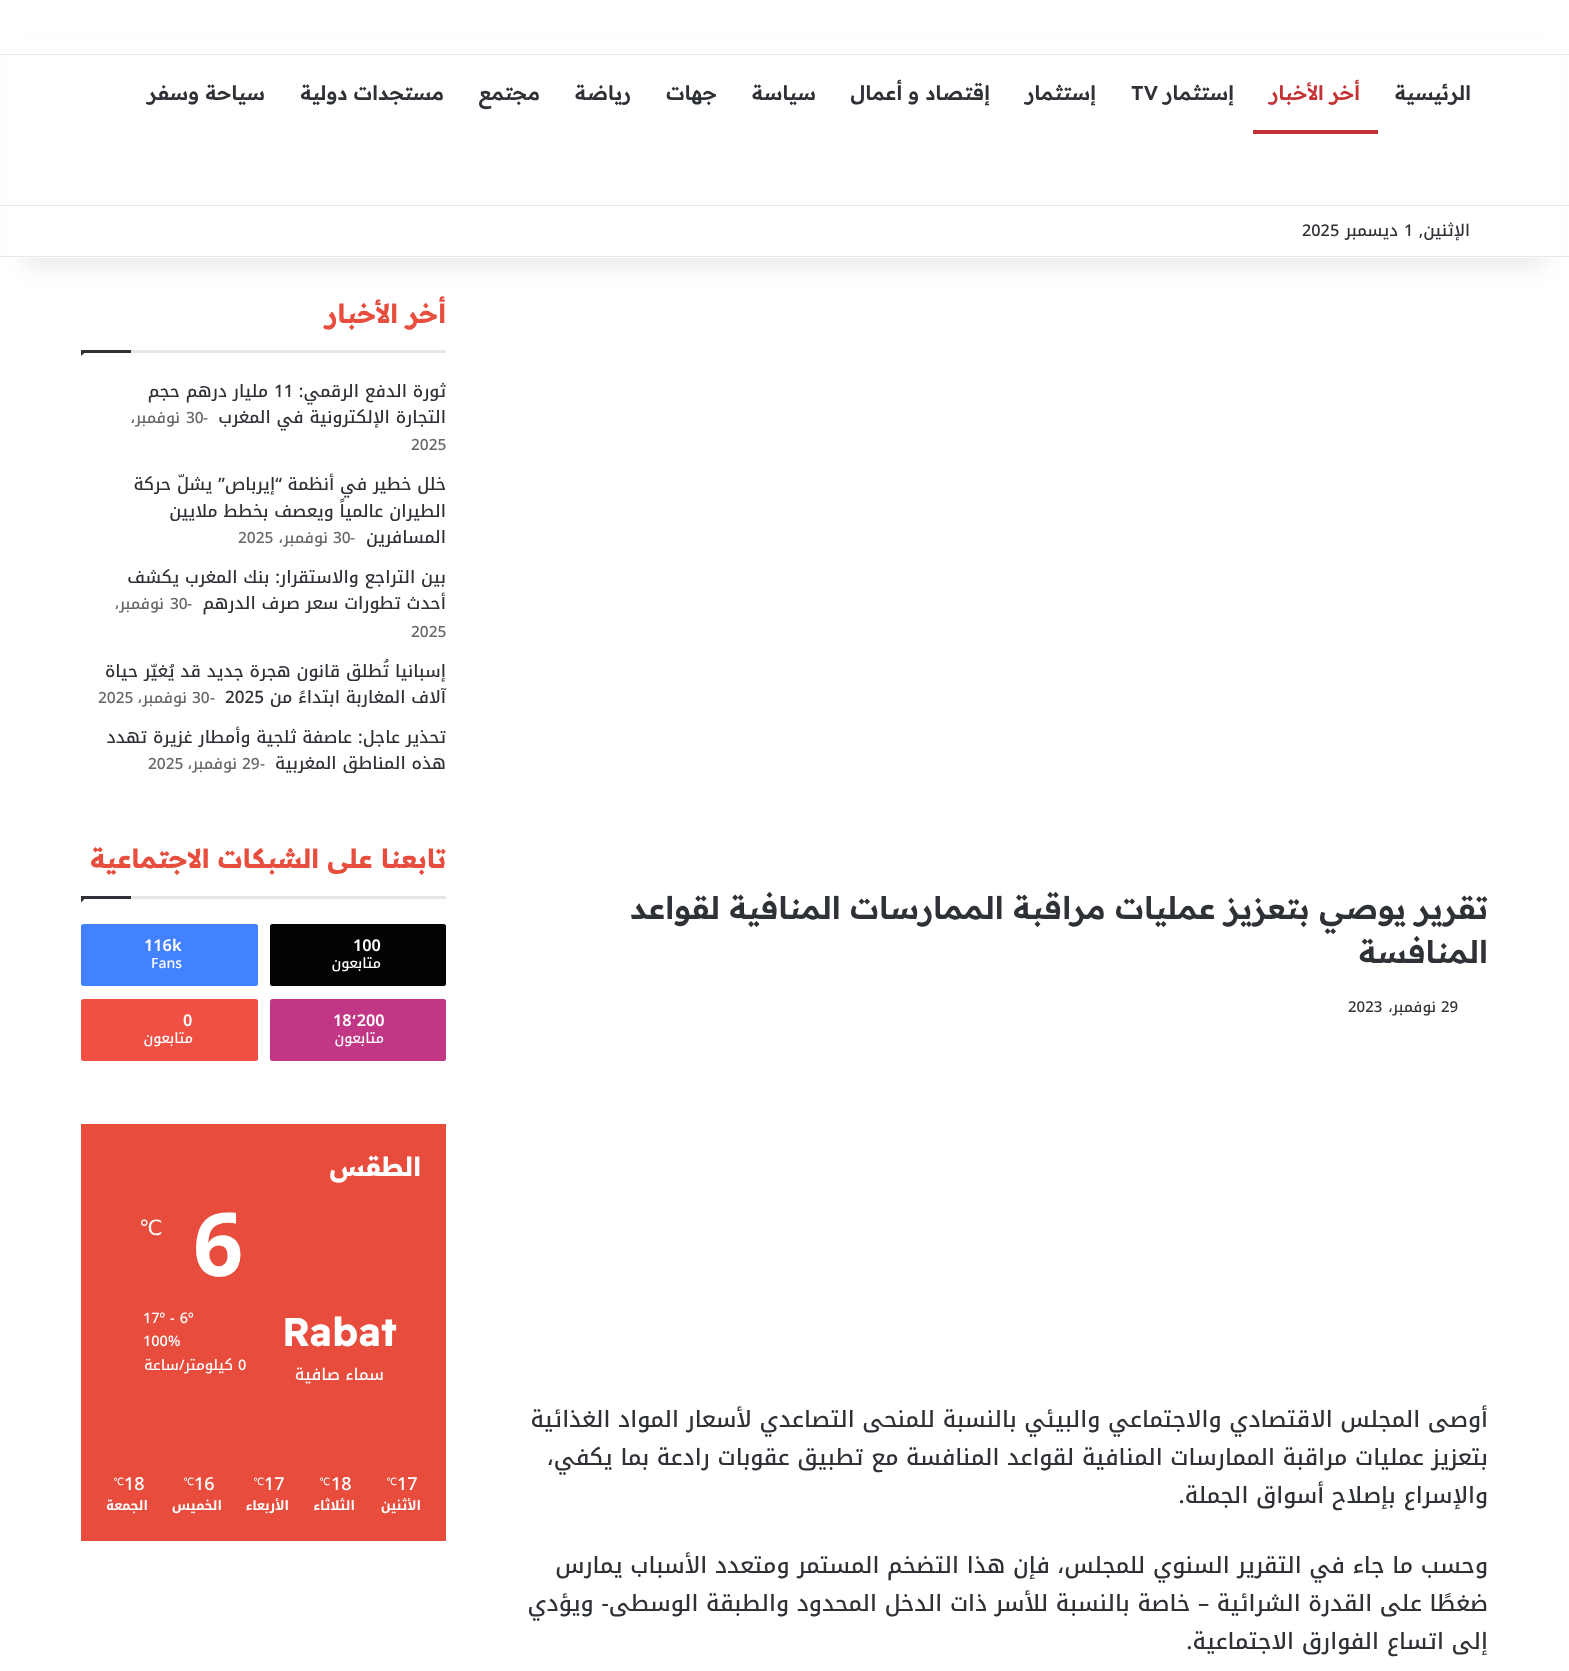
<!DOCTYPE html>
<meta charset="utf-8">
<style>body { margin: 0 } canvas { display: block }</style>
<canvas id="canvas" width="1569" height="1671"></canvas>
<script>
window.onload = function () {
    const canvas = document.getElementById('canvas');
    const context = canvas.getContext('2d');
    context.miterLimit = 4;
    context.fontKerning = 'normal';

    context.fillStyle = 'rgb(255, 255, 255)';
    context.fillRect(0, 0, 1569, 1671);
    context.fillStyle = 'rgba(0, 0, 0, 0.1)';
    context.filter = 'blur(12.5px)';
    context.beginPath();
    context.rect(25, 56, 1520, 208);
    context.fill();
    context.filter = 'none';
    context.fillStyle = 'rgb(255, 255, 255)';
    context.fillRect(9, 40, 1552, 218);
    context.fillStyle = 'rgb(230, 230, 230)';
    context.fillRect(0, 54, 1569, 1);
    context.fillRect(0, 205, 1569, 1);
    context.fillStyle = 'rgb(195, 51, 53)';
    context.fillRect(1253, 130, 125, 4);
    context.fillStyle = 'rgb(230, 230, 230)';
    context.fillRect(0, 256, 1569, 1);
    context.fillRect(131, 350, 315, 3);
    context.fillStyle = 'rgb(46, 49, 54)';
    context.beginPath();
    context.moveTo(81, 350);
    context.lineTo(87.5, 350);
    context.lineTo(81, 356);
    context.closePath();
    context.fill();
    context.fillRect(81, 350, 50, 3);
    context.fillStyle = 'rgb(230, 230, 230)';
    context.fillRect(131, 896, 315, 3);
    context.fillStyle = 'rgb(46, 49, 54)';
    context.beginPath();
    context.moveTo(81, 896);
    context.lineTo(87.5, 896);
    context.lineTo(81, 902.5);
    context.closePath();
    context.fill();
    context.fillRect(81, 896, 50, 3);
    context.fillStyle = 'rgb(3, 3, 3)';
    context.beginPath();
    context.roundRect(270, 924, 176, 62, 2.5);
    context.fill();
    context.fillStyle = 'rgb(66, 129, 255)';
    context.beginPath();
    context.roundRect(81, 924, 177, 62, 2.5);
    context.fill();
    context.fillStyle = 'rgb(194, 55, 133)';
    context.beginPath();
    context.roundRect(270, 999, 176, 62, 2.5);
    context.fill();
    context.fillStyle = 'rgb(239, 80, 67)';
    context.beginPath();
    context.roundRect(81, 999, 177, 62, 2.5);
    context.fill();
    context.fillStyle = 'rgb(231, 76, 60)';
    context.fillRect(81, 1124, 365, 417);
    context.direction = 'rtl';
    context.font = '600 20px Readex Pro';
    context.fillStyle = 'rgb(46, 49, 54)';
    context.fillText('الرئيسية', 1471, 100);
    context.fillStyle = 'rgb(195, 51, 53)';
    context.fillText('أخر الأخبار', 1360, 100);
    context.fillStyle = 'rgb(46, 49, 54)';
    context.fillText('إستثمار', 1234, 100);
    context.direction = 'ltr';
    context.fillText('TV', 1131, 100);
    context.direction = 'rtl';
    context.fillText('إستثمار', 1096, 100);
    context.fillText('إقتصاد و أعمال', 990, 100);
    context.fillText('سياسة', 816, 100);
    context.fillText('جهات', 717, 100);
    context.fillText('رياضة', 631, 100);
    context.fillText('مجتمع', 540, 100);
    context.fillText('مستجدات دولية', 444, 100);
    context.fillText('سياحة وسفر', 265, 100);
    context.font = '500 16.25px Noto Kufi Arabic';
    context.fillText('الإثنين,', 1470, 236);
    context.direction = 'ltr';
    context.fillText('1', 1404, 236);
    context.direction = 'rtl';
    context.fillText('ديسمبر', 1398, 236);
    context.direction = 'ltr';
    context.fillText('2025', 1302, 236);
    context.direction = 'rtl';
    context.font = '600 31.25px Readex Pro';
    context.fillText('تقرير يوصي بتعزيز عمليات مراقبة الممارسات المنافية لقواعد', 1488, 919);
    context.fillText('المنافسة', 1488, 963);
    context.direction = 'ltr';
    context.font = '500 15px Noto Kufi Arabic';
    context.fillStyle = 'rgb(53, 53, 53)';
    context.fillText('29', 1441, 1012);
    context.direction = 'rtl';
    context.fillText('نوفمبر،', 1436, 1012);
    context.direction = 'ltr';
    context.fillText('2023', 1348, 1012);
    context.direction = 'rtl';
    context.font = '500 22.5px Noto Kufi Arabic';
    context.fillStyle = 'rgb(46, 49, 54)';
    context.fillText('أوصى المجلس الاقتصادي والاجتماعي والبيئي بالنسبة للمنحى التصاعدي لأسعار المواد الغذائية', 1488, 1427);
    context.fillText('بتعزيز عمليات مراقبة الممارسات المنافية لقواعد المنافسة مع تطبيق عقوبات رادعة بما يكفي،', 1488, 1465);
    context.fillText('والإسراع بإصلاح أسواق الجملة.', 1488, 1503);
    context.fillText('وحسب ما جاء في التقرير السنوي للمجلس، فإن هذا التضخم المستمر ومتعدد الأسباب يمارس', 1488, 1573);
    context.fillText('ضغطًا على القدرة الشرائية – خاصة بالنسبة للأسر ذات الدخل المحدود والطبقة الوسطى- ويؤدي', 1488, 1611);
    context.fillText('إلى اتساع الفوارق الاجتماعية.', 1488, 1649);
    context.font = 'bold 26.25px Readex Pro';
    context.fillStyle = 'rgb(231, 78, 62)';
    context.fillText('أخر الأخبار', 446, 323);
    context.font = '500 17.1px Noto Kufi Arabic';
    context.fillStyle = 'rgb(46, 49, 54)';
    context.fillText('ثورة الدفع الرقمي:', 446, 397);
    context.direction = 'ltr';
    context.fillText('11', 274, 397);
    context.direction = 'rtl';
    context.fillText('مليار درهم حجم', 268, 397);
    context.fillText('التجارة الإلكترونية في المغرب', 446, 423);
    context.direction = 'ltr';
    context.font = '500 15.5px Noto Kufi Arabic';
    context.fillStyle = 'rgb(104, 104, 104)';
    context.fillText('-', 203, 423);
    context.fillText('30', 186, 423);
    context.direction = 'rtl';
    context.fillText('نوفمبر،', 180, 423);
    context.direction = 'ltr';
    context.fillText('2025', 411, 450);
    context.direction = 'rtl';
    context.font = '500 17.1px Noto Kufi Arabic';
    context.fillStyle = 'rgb(46, 49, 54)';
    context.fillText('خلل خطير في أنظمة “إيرباص” يشلّ حركة', 446, 490);
    context.fillText('الطيران عالمياً ويعصف بخطط ملايين', 446, 517);
    context.fillText('المسافرين', 446, 543);
    context.direction = 'ltr';
    context.font = '500 15.5px Noto Kufi Arabic';
    context.fillStyle = 'rgb(104, 104, 104)';
    context.fillText('-', 350, 543);
    context.fillText('30', 333, 543);
    context.direction = 'rtl';
    context.fillText('نوفمبر،', 328, 543);
    context.direction = 'ltr';
    context.fillText('2025', 238, 543);
    context.direction = 'rtl';
    context.font = '500 17.1px Noto Kufi Arabic';
    context.fillStyle = 'rgb(46, 49, 54)';
    context.fillText('بين التراجع والاستقرار: بنك المغرب يكشف', 446, 583);
    context.fillText('أحدث تطورات سعر صرف الدرهم', 446, 609);
    context.direction = 'ltr';
    context.font = '500 15.5px Noto Kufi Arabic';
    context.fillStyle = 'rgb(104, 104, 104)';
    context.fillText('-', 187, 609);
    context.fillText('30', 170, 609);
    context.direction = 'rtl';
    context.fillText('نوفمبر،', 164, 609);
    context.direction = 'ltr';
    context.fillText('2025', 411, 637);
    context.direction = 'rtl';
    context.font = '500 17.1px Noto Kufi Arabic';
    context.fillStyle = 'rgb(46, 49, 54)';
    context.fillText('إسبانيا تُطلق قانون هجرة جديد قد يُغيّر حياة', 446, 677);
    context.fillText('آلاف المغاربة ابتداءً من', 446, 703);
    context.direction = 'ltr';
    context.fillText('2025', 225, 703);
    context.font = '500 15.5px Noto Kufi Arabic';
    context.fillStyle = 'rgb(104, 104, 104)';
    context.fillText('-', 210, 703);
    context.fillText('30', 192, 703);
    context.direction = 'rtl';
    context.fillText('نوفمبر،', 187, 703);
    context.direction = 'ltr';
    context.fillText('2025', 98, 703);
    context.direction = 'rtl';
    context.font = '500 17.1px Noto Kufi Arabic';
    context.fillStyle = 'rgb(46, 49, 54)';
    context.fillText('تحذير عاجل: عاصفة ثلجية وأمطار غزيرة تهدد', 446, 743);
    context.fillText('هذه المناطق المغربية', 446, 769);
    context.direction = 'ltr';
    context.font = '500 15.5px Noto Kufi Arabic';
    context.fillStyle = 'rgb(104, 104, 104)';
    context.fillText('-', 260, 769);
    context.fillText('29', 242, 769);
    context.direction = 'rtl';
    context.fillText('نوفمبر،', 237, 769);
    context.direction = 'ltr';
    context.fillText('2025', 148, 769);
    context.direction = 'rtl';
    context.font = 'bold 26.25px Readex Pro';
    context.fillStyle = 'rgb(231, 78, 62)';
    context.fillText('تابعنا على الشبكات الاجتماعية', 446, 868);
    context.direction = 'ltr';
    context.font = '600 16.25px Noto Kufi Arabic';
    context.fillStyle = 'rgb(255, 255, 255)';
    context.fillText('100', 353, 951);
    context.direction = 'rtl';
    context.font = '500 14px Noto Kufi Arabic';
    context.fillText('متابعون', 381, 968);
    context.direction = 'ltr';
    context.font = '600 16.25px Noto Kufi Arabic';
    context.fillText('116k', 144, 951);
    context.font = '500 14px Noto Kufi Arabic';
    context.fillText('Fans', 151, 968);
    context.font = '600 16.25px Noto Kufi Arabic';
    context.fillText('18٬200', 333, 1026);
    context.direction = 'rtl';
    context.font = '500 14px Noto Kufi Arabic';
    context.fillText('متابعون', 384, 1043);
    context.direction = 'ltr';
    context.font = '600 16.25px Noto Kufi Arabic';
    context.fillText('0', 183, 1026);
    context.direction = 'rtl';
    context.font = '500 14px Noto Kufi Arabic';
    context.fillText('متابعون', 193, 1043);
    context.font = 'bold 26.25px Readex Pro';
    context.fillText('الطقس', 421, 1176);
    context.direction = 'ltr';
    context.font = 'bold 40px Readex Pro';
    context.fillText('Rabat', 282, 1346);
    context.direction = 'rtl';
    context.font = '500 16.25px Noto Kufi Arabic';
    context.fillText('سماء صافية', 384, 1380);
    context.direction = 'ltr';
    context.font = 'bold 88px Noto Kufi Arabic';
    context.fillText('6', 193, 1276);
    context.font = '21px DejaVu Sans';
    context.fillText('℃', 139, 1235);
    context.font = '500 14.5px Noto Kufi Arabic';
    context.fillText('17º - 6º', 143, 1323);
    context.fillText('100%', 143, 1346);
    context.fillText('0', 238, 1370);
    context.direction = 'rtl';
    context.fillText('كيلومتر/ساعة', 233, 1370);
    context.direction = 'ltr';
    context.font = '500 18px Noto Kufi Arabic';
    context.fillText('17', 397, 1490);
    context.font = '10px DejaVu Sans';
    context.fillText('℃', 386, 1485);
    context.direction = 'rtl';
    context.font = 'bold 13px Noto Kufi Arabic';
    context.fillText('الأثنين', 421, 1510);
    context.direction = 'ltr';
    context.font = '500 18px Noto Kufi Arabic';
    context.fillText('18', 331, 1490);
    context.font = '10px DejaVu Sans';
    context.fillText('℃', 319, 1485);
    context.direction = 'rtl';
    context.font = 'bold 13px Noto Kufi Arabic';
    context.fillText('الثلاثاء', 355, 1510);
    context.direction = 'ltr';
    context.font = '500 18px Noto Kufi Arabic';
    context.fillText('17', 264, 1490);
    context.font = '10px DejaVu Sans';
    context.fillText('℃', 253, 1485);
    context.direction = 'rtl';
    context.font = 'bold 13px Noto Kufi Arabic';
    context.fillText('الأربعاء', 289, 1510);
    context.direction = 'ltr';
    context.font = '500 18px Noto Kufi Arabic';
    context.fillText('16', 194, 1490);
    context.font = '10px DejaVu Sans';
    context.fillText('℃', 183, 1485);
    context.direction = 'rtl';
    context.font = 'bold 13px Noto Kufi Arabic';
    context.fillText('الخميس', 222, 1510);
    context.direction = 'ltr';
    context.font = '500 18px Noto Kufi Arabic';
    context.fillText('18', 124, 1490);
    context.font = '10px DejaVu Sans';
    context.fillText('℃', 113, 1485);
    context.direction = 'rtl';
    context.font = 'bold 13px Noto Kufi Arabic';
    context.fillText('الجمعة', 148, 1510);
};
</script>
